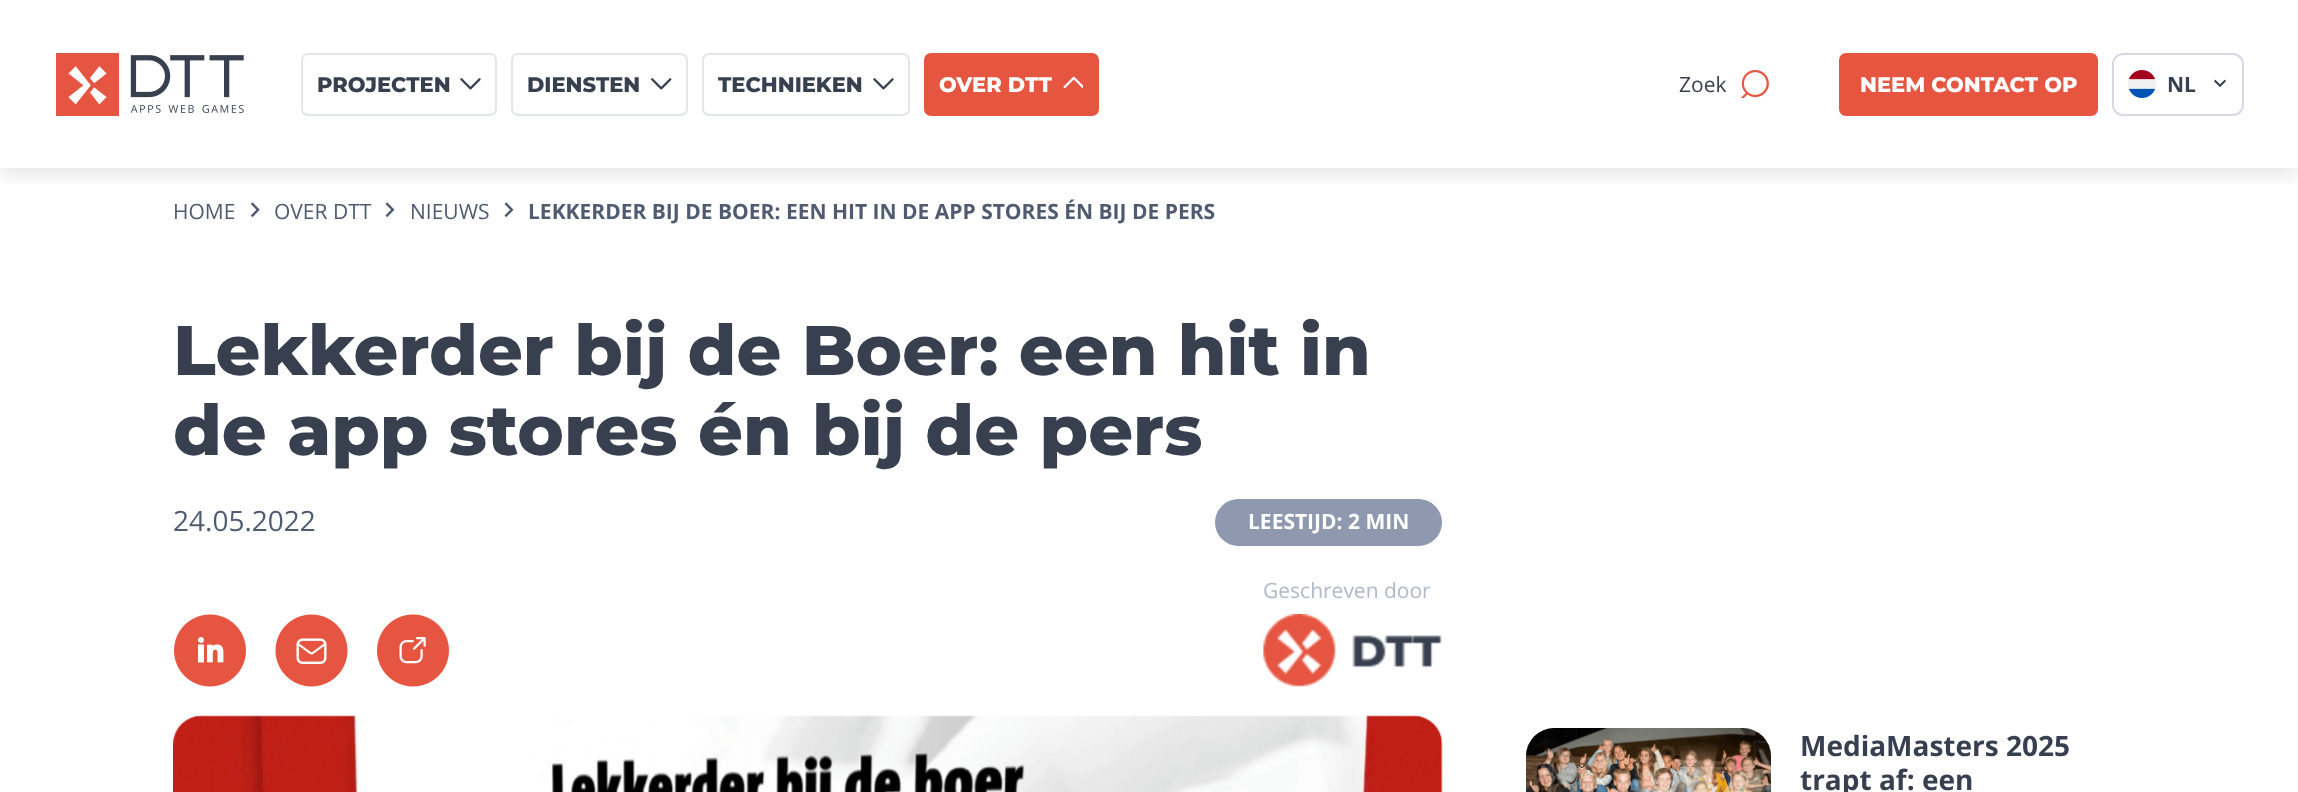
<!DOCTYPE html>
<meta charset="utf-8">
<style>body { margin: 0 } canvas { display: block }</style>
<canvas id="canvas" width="2298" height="792"></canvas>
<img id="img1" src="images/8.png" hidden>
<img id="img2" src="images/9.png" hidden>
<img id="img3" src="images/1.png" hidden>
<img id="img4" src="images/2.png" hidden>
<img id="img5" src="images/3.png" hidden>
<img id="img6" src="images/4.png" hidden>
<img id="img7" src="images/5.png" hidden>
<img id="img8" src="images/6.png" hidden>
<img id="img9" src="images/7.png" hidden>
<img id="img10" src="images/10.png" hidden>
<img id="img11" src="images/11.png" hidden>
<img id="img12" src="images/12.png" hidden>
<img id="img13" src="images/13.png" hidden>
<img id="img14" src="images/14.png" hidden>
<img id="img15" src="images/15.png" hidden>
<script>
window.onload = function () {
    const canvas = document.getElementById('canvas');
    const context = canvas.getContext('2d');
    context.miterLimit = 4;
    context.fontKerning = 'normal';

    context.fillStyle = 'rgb(255, 255, 255)';
    context.fillRect(0, 0, 2298, 792);
    context.drawImage(document.getElementById('img1'), 250, 202, 10, 16);
    context.drawImage(document.getElementById('img2'), 385, 202, 10, 16);
    context.drawImage(document.getElementById('img2'), 504, 202, 10, 16);
    context.save();
    context.beginPath();
    context.rect(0, 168, 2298, 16);
    context.clip();
    context.fillStyle = 'rgba(0, 0, 0, 0.1)';
    context.filter = 'blur(10.5px)';
    context.beginPath();
    context.rect(0, 7, 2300, 168);
    context.fill();
    context.filter = 'none';
    context.restore();
    context.drawImage(document.getElementById('img3'), 56, 53, 188, 63);
    context.beginPath();
    context.roundRect(302, 54, 194, 61, 6);
    context.strokeStyle = 'rgb(226, 229, 234)';
    context.lineWidth = 2;
    context.stroke();
    context.drawImage(document.getElementById('img4'), 460, 78, 21, 12);
    context.beginPath();
    context.roundRect(512, 54, 175, 61, 6);
    context.stroke();
    context.drawImage(document.getElementById('img5'), 651, 78, 21, 12);
    context.beginPath();
    context.roundRect(703, 54, 206, 61, 6);
    context.stroke();
    context.drawImage(document.getElementById('img4'), 873, 78, 21, 12);
    context.fillStyle = 'rgb(230, 85, 64)';
    context.beginPath();
    context.roundRect(924, 53, 175, 63, 7);
    context.fill();
    context.drawImage(document.getElementById('img6'), 1063, 76, 20, 13);
    context.drawImage(document.getElementById('img7'), 1741, 70, 28, 28);
    context.beginPath();
    context.roundRect(1839, 53, 259, 63, 7);
    context.fill();
    context.beginPath();
    context.roundRect(2113, 54, 130, 61, 10);
    context.strokeStyle = 'rgb(213, 217, 225)';
    context.stroke();
    context.drawImage(document.getElementById('img8'), 2128, 70, 28, 28);
    context.drawImage(document.getElementById('img9'), 2214, 79, 12, 9);
    context.fillStyle = 'rgb(142, 152, 175)';
    context.beginPath();
    context.roundRect(1215, 499, 227, 47, 23.5);
    context.fill();
    context.drawImage(document.getElementById('img10'), 1263, 614, 180, 73);
    context.drawImage(document.getElementById('img11'), 174, 614, 72, 73);
    context.drawImage(document.getElementById('img12'), 275, 614, 73, 73);
    context.drawImage(document.getElementById('img13'), 377, 614, 72, 73);
    context.drawImage(document.getElementById('img14'), 173, 715, 1270, 77);
    context.drawImage(document.getElementById('img15'), 1526, 728, 245, 64);
    context.font = '800 21px Montserrat';
    context.fillStyle = 'rgb(56, 63, 79)';
    context.fillText('PROJECTEN', 317, 92);
    context.fillText('DIENSTEN', 527, 92);
    context.fillText('TECHNIEKEN', 718, 92);
    context.fillStyle = 'rgb(255, 255, 255)';
    context.fillText('OVER DTT', 939, 92);
    context.font = '21px Open Sans';
    context.fillStyle = 'rgb(56, 63, 79)';
    context.fillText('Zoek', 1679, 92);
    context.font = '800 21px Montserrat';
    context.fillStyle = 'rgb(255, 255, 255)';
    context.fillText('NEEM CONTACT OP', 1860, 92);
    context.font = 'bold 21px Open Sans';
    context.fillStyle = 'rgb(56, 63, 79)';
    context.fillText('NL', 2167, 92);
    context.font = '21px Open Sans';
    context.fillStyle = 'rgb(80, 90, 113)';
    context.fillText('HOME', 173, 219);
    context.fillText('OVER DTT', 274, 219);
    context.fillText('NIEUWS', 410, 219);
    context.font = 'bold 21px Open Sans';
    context.fillText('LEKKERDER BIJ DE BOER: EEN HIT IN DE APP STORES ÉN BIJ DE PERS', 528, 219);
    context.font = '800 70px Montserrat';
    context.fillStyle = 'rgb(56, 63, 79)';
    context.fillText('Lekkerder bij de Boer: een hit in', 173, 375);
    context.fillText('de app stores én bij de pers', 173, 455);
    context.font = '28px Open Sans';
    context.fillStyle = 'rgb(80, 90, 113)';
    context.fillText('24.05.2022', 173, 531);
    context.font = 'bold 21px Open Sans';
    context.fillStyle = 'rgb(255, 255, 255)';
    context.fillText('LEESTIJD: 2 MIN', 1248, 529);
    context.font = '21px Open Sans';
    context.fillStyle = 'rgb(177, 184, 200)';
    context.fillText('Geschreven door', 1263, 598);
    context.font = 'bold 28px Open Sans';
    context.fillStyle = 'rgb(56, 63, 79)';
    context.fillText('MediaMasters 2025', 1800, 756);
    context.fillText('trapt af: een', 1800, 790);
};
</script>
